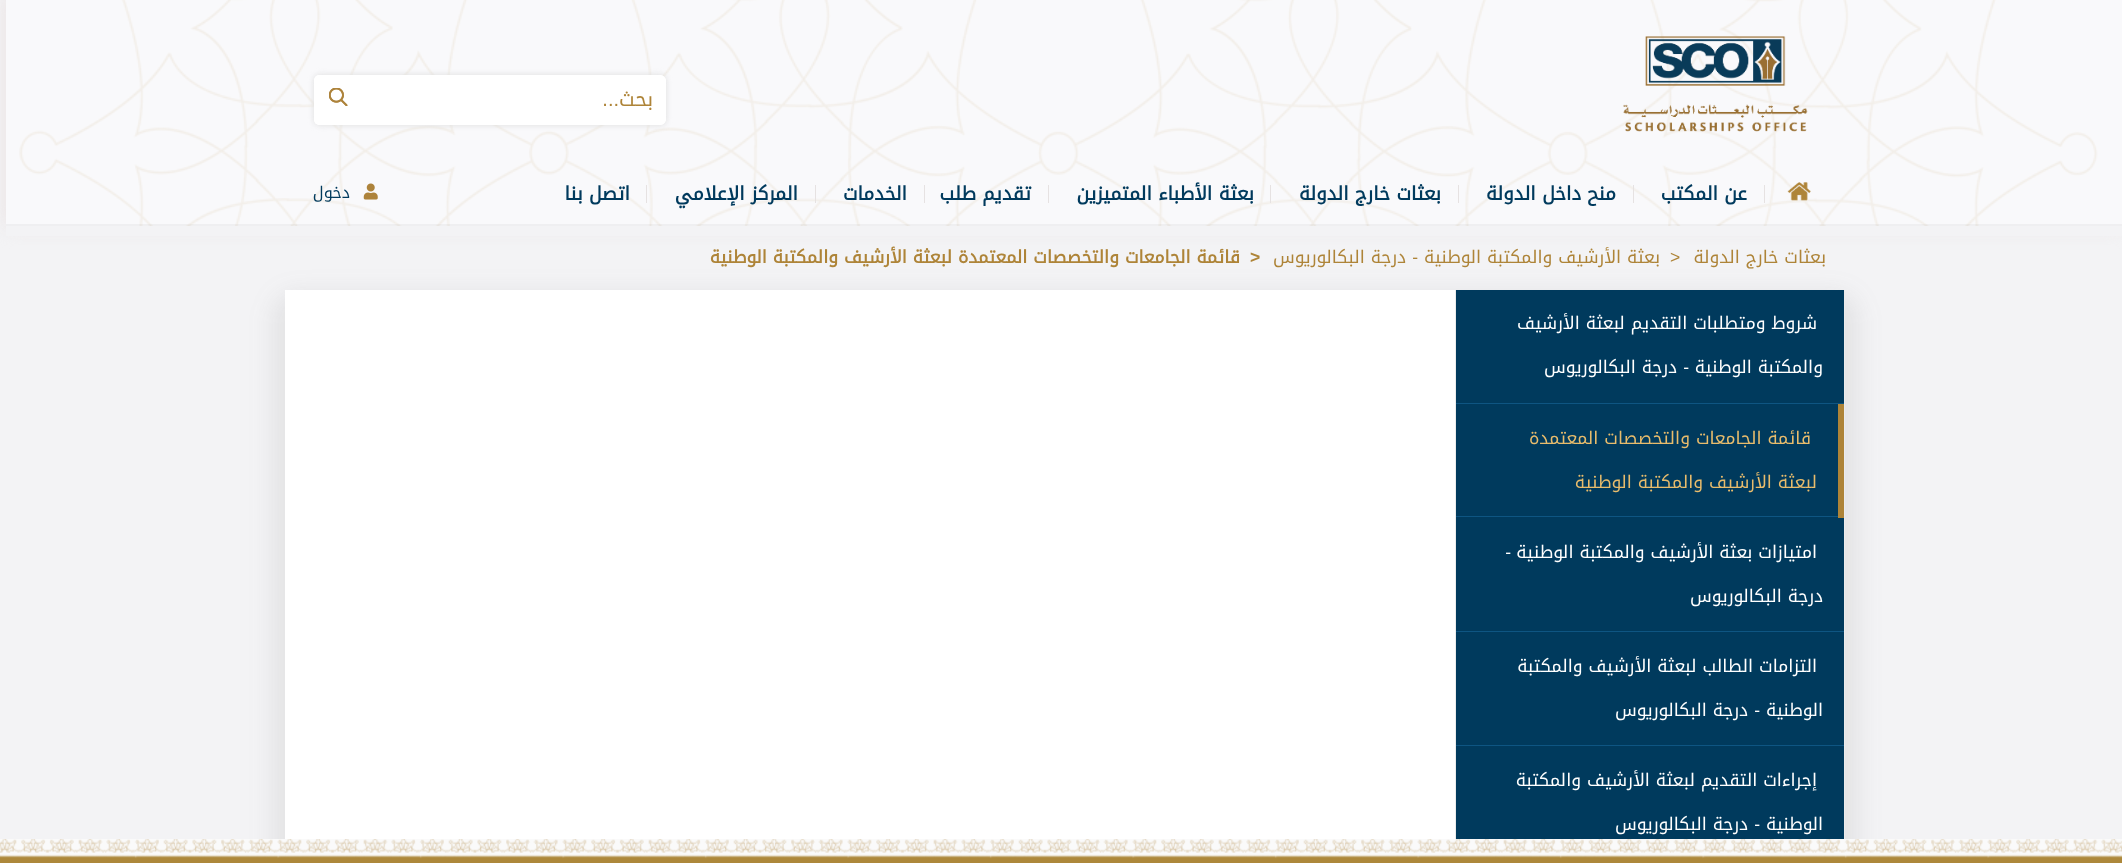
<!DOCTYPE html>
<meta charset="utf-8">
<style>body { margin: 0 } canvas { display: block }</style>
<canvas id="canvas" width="2122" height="863"></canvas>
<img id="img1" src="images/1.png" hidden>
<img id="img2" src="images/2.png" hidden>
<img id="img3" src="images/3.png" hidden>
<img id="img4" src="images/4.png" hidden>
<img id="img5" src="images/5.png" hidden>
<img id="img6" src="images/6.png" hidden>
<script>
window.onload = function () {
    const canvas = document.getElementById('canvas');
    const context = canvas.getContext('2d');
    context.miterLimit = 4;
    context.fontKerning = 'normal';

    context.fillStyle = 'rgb(243, 243, 245)';
    context.fillRect(0, 0, 2122, 863);
    context.fillStyle = 'rgb(234, 226, 226)';
    context.filter = 'blur(9.5px)';
    context.beginPath();
    context.rect(6, -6, 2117, 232);
    context.fill();
    context.filter = 'none';
    context.fillStyle = 'rgb(246, 246, 249)';
    context.fillRect(6, 0, 2116, 226);
    context.drawImage(document.getElementById('img1'), 19, 0, 2079, 226);
    context.fillStyle = 'rgba(255, 255, 255, 0.4)';
    context.fillRect(6, 0, 2116, 226);
    context.fillStyle = 'rgba(0, 0, 0, 0.04)';
    context.fillRect(6, 224, 2116, 2);
    context.drawImage(document.getElementById('img2'), 1623, 36, 185, 96);
    context.fillStyle = 'rgb(221, 221, 221)';
    context.filter = 'blur(3px)';
    context.beginPath();
    context.roundRect(314, 75, 352, 50, 6);
    context.fill();
    context.filter = 'none';
    context.fillStyle = 'rgb(255, 255, 255)';
    context.beginPath();
    context.roundRect(314, 75, 352, 50, 6);
    context.fill();
    context.beginPath();
    context.roundRect(363, 75, 303, 50, 6);
    context.fill();
    context.beginPath();
    context.roundRect(314, 75, 49, 50, [5, 0, 0, 5]);
    context.fill();
    context.drawImage(document.getElementById('img3'), 329, 88, 19, 18);
    context.drawImage(document.getElementById('img4'), 1787, 182, 24, 19);
    context.fillStyle = 'rgb(230, 226, 226)';
    context.fillRect(1764, 185, 1, 18);
    context.fillRect(1633, 185, 1, 18);
    context.fillRect(1458, 185, 1, 18);
    context.fillRect(1270, 185, 1, 18);
    context.fillRect(1048, 185, 1, 18);
    context.fillRect(924, 185, 1, 18);
    context.fillRect(815, 185, 1, 18);
    context.fillRect(646, 185, 1, 18);
    context.drawImage(document.getElementById('img5'), 363, 183, 15, 17);
    context.fillStyle = 'rgb(243, 243, 245)';
    context.fillRect(6, 226, 2116, 10);
    context.fillStyle = 'rgba(100, 100, 100, 0.11)';
    context.filter = 'blur(12px)';
    context.beginPath();
    context.roundRect(273, 293, 1585, 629, 23);
    context.fill();
    context.filter = 'none';
    context.fillStyle = 'rgb(255, 255, 255)';
    context.fillRect(285, 290, 1170, 549);
    context.fillStyle = 'rgb(0, 58, 93)';
    context.fillRect(1456, 290, 388, 549);
    context.fillStyle = 'rgb(236, 236, 236)';
    context.fillRect(1844, 290, 1, 549);
    context.fillRect(1455, 290, 1, 549);
    context.fillStyle = 'rgb(14, 85, 130)';
    context.fillRect(1456, 403, 388, 1);
    context.fillStyle = 'rgb(174, 132, 56)';
    context.fillRect(1838, 404, 6, 114);
    context.fillStyle = 'rgb(14, 85, 130)';
    context.fillRect(1456, 516, 382, 1);
    context.fillRect(1456, 631, 388, 1);
    context.fillRect(1456, 745, 388, 1);
    context.fillStyle = 'rgb(250, 250, 250)';
    context.fillRect(0, 839, 2122, 20);
    context.drawImage(document.getElementById('img6'), 0, 839, 2122, 24);
    context.direction = 'rtl';
    context.font = '20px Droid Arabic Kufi';
    context.fillStyle = 'rgb(174, 132, 56)';
    context.fillText('بحث', 653, 106);
    context.font = '20px Liberation Sans';
    context.fillText('...', 619, 106);
    context.font = 'bold 18.75px Droid Arabic Kufi';
    context.fillStyle = 'rgb(0, 58, 93)';
    context.fillText('عن المكتب', 1747, 200);
    context.fillText('منح داخل الدولة', 1616, 200);
    context.fillText('بعثات خارج الدولة', 1441, 200);
    context.fillText('بعثة الأطباء المتميزين', 1254, 200);
    context.fillText('تقديم طلب', 1031, 200);
    context.fillText('الخدمات', 907, 200);
    context.fillText('المركز الإعلامي', 798, 200);
    context.fillText('اتصل بنا', 630, 200);
    context.font = '16px Droid Arabic Kufi';
    context.fillText('دخول', 350, 198);
    context.font = '17.5px Droid Arabic Kufi';
    context.fillStyle = 'rgb(174, 132, 56)';
    context.fillText('بعثات خارج الدولة', 1826, 263);
    context.direction = 'ltr';
    context.font = '17.5px Liberation Sans';
    context.fillText('>', 1670, 263);
    context.direction = 'rtl';
    context.font = '17.5px Droid Arabic Kufi';
    context.fillText('بعثة الأرشيف والمكتبة الوطنية', 1660, 263);
    context.font = '17.5px Liberation Sans';
    context.fillText('-', 1418, 263);
    context.font = '17.5px Droid Arabic Kufi';
    context.fillText('درجة البكالوريوس', 1406, 263);
    context.direction = 'ltr';
    context.font = 'bold 17.5px Liberation Sans';
    context.fillText('>', 1250, 263);
    context.direction = 'rtl';
    context.font = 'bold 17.5px Droid Arabic Kufi';
    context.fillText('قائمة الجامعات والتخصصات المعتمدة لبعثة الأرشيف والمكتبة الوطنية', 1240, 263);
    context.font = '17.5px Droid Arabic Kufi';
    context.fillStyle = 'rgb(255, 255, 255)';
    context.fillText('شروط ومتطلبات التقديم لبعثة الأرشيف', 1817, 329);
    context.fillText('والمكتبة الوطنية', 1823, 373);
    context.font = '17.5px Liberation Sans';
    context.fillText('-', 1689, 373);
    context.font = '17.5px Droid Arabic Kufi';
    context.fillText('درجة البكالوريوس', 1677, 373);
    context.fillStyle = 'rgb(232, 188, 108)';
    context.fillText('قائمة الجامعات والتخصصات المعتمدة', 1811, 444);
    context.fillText('لبعثة الأرشيف والمكتبة الوطنية', 1817, 488);
    context.fillStyle = 'rgb(255, 255, 255)';
    context.fillText('امتيازات بعثة الأرشيف والمكتبة الوطنية', 1817, 558);
    context.font = '17.5px Liberation Sans';
    context.fillText('-', 1511, 558);
    context.font = '17.5px Droid Arabic Kufi';
    context.fillText('درجة البكالوريوس', 1823, 602);
    context.fillText('التزامات الطالب لبعثة الأرشيف والمكتبة', 1817, 672);
    context.fillText('الوطنية', 1823, 716);
    context.font = '17.5px Liberation Sans';
    context.fillText('-', 1760, 716);
    context.font = '17.5px Droid Arabic Kufi';
    context.fillText('درجة البكالوريوس', 1748, 716);
    context.fillText('إجراءات التقديم لبعثة الأرشيف والمكتبة', 1817, 786);
    context.fillText('الوطنية', 1823, 830);
    context.font = '17.5px Liberation Sans';
    context.fillText('-', 1760, 830);
    context.font = '17.5px Droid Arabic Kufi';
    context.fillText('درجة البكالوريوس', 1748, 830);
};
</script>
